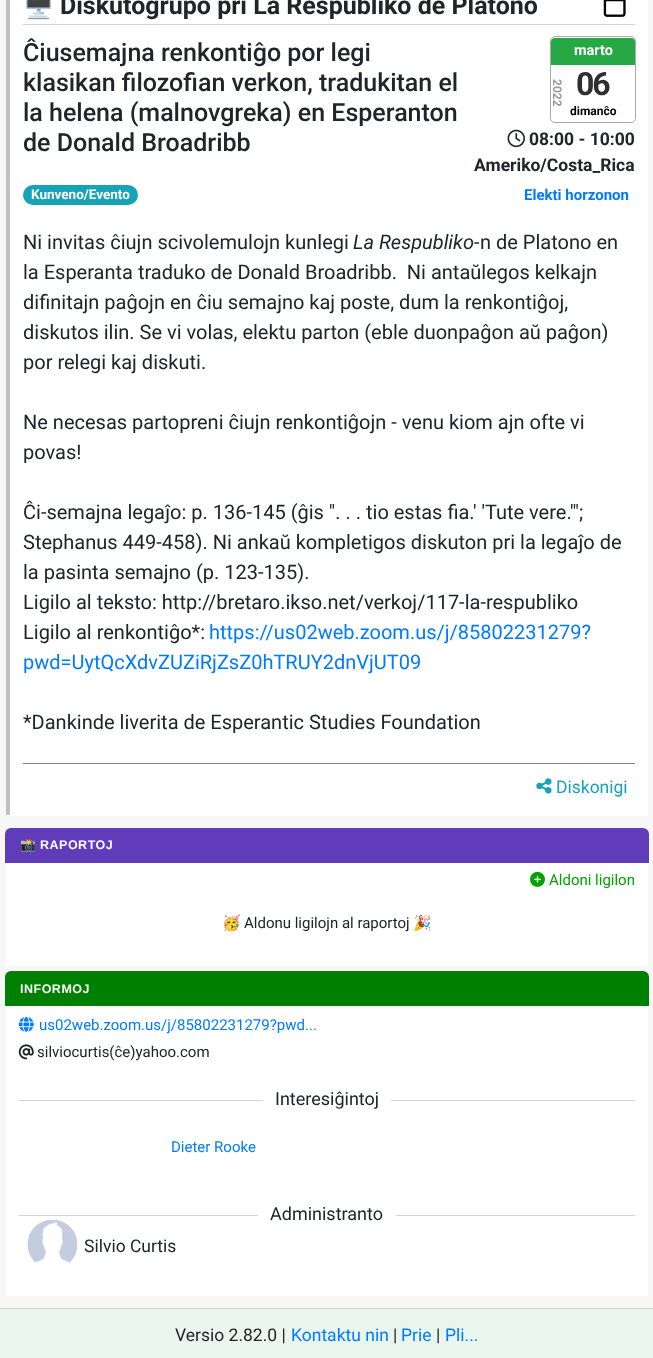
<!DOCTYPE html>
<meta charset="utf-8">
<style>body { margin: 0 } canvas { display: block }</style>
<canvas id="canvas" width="653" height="1358"></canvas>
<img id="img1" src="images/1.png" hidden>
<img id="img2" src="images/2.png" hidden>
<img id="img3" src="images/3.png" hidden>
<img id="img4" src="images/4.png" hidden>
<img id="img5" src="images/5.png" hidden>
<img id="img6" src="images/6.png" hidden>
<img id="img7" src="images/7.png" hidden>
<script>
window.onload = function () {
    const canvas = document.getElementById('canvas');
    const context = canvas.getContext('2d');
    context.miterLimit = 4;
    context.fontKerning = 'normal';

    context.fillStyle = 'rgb(247, 247, 247)';
    context.fillRect(0, 0, 653, 1358);
    context.fillStyle = 'rgb(255, 255, 255)';
    context.beginPath();
    context.roundRect(6, -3, 642, 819, 2.5);
    context.fill();
    context.fillStyle = 'rgb(192, 192, 192)';
    context.fillRect(6, 0, 4, 815);
    context.fillStyle = 'rgb(211, 211, 211)';
    context.fillRect(23, 24, 612, 1);
    context.drawImage(document.getElementById('img1'), 603, 0, 23, 17);
    context.beginPath();
    context.roundRect(550.5, 36.5, 85, 86, 4.5);
    context.strokeStyle = 'rgb(169, 169, 169)';
    context.stroke();
    context.fillStyle = 'rgb(255, 255, 255)';
    context.beginPath();
    context.roundRect(551, 38, 84, 83, 4);
    context.fill();
    context.fillStyle = 'rgb(40, 167, 69)';
    context.beginPath();
    context.roundRect(551, 38, 84, 27, [4, 4, 0, 0]);
    context.fill();
    context.drawImage(document.getElementById('img2'), 507, 129, 18, 19);
    context.fillStyle = 'rgb(23, 162, 184)';
    context.beginPath();
    context.roundRect(23, 185, 115, 20, 10);
    context.fill();
    context.fillStyle = 'rgb(128, 128, 128)';
    context.fillRect(23, 763, 612, 1);
    context.drawImage(document.getElementById('img3'), 536, 778, 16, 16);
    context.fillStyle = 'rgb(255, 255, 255)';
    context.beginPath();
    context.roundRect(6, 829, 642, 137, 2.5);
    context.fill();
    context.fillStyle = 'rgb(96, 60, 186)';
    context.beginPath();
    context.roundRect(5, 828, 644, 35, [6, 6, 0, 0]);
    context.fill();
    context.drawImage(document.getElementById('img4'), 530, 871, 15, 16);
    context.fillStyle = 'rgb(255, 255, 255)';
    context.beginPath();
    context.roundRect(6, 973, 642, 323, 2.5);
    context.fill();
    context.fillStyle = 'rgb(0, 128, 0)';
    context.beginPath();
    context.roundRect(5, 971, 644, 35, [6, 6, 0, 0]);
    context.fill();
    context.drawImage(document.getElementById('img5'), 18, 1016, 16, 16);
    context.drawImage(document.getElementById('img6'), 18, 1044, 16, 16);
    context.fillStyle = 'rgb(211, 211, 211)';
    context.fillRect(19, 1100, 244, 1);
    context.fillRect(391, 1100, 244, 1);
    context.fillRect(19, 1215, 239, 1);
    context.fillRect(396, 1215, 239, 1);
    context.drawImage(document.getElementById('img7'), 27, 1219, 51, 44);
    context.fillStyle = 'rgb(234, 246, 237)';
    context.fillRect(0, 1309, 653, 49);
    context.fillStyle = 'rgb(211, 211, 211)';
    context.fillRect(0, 1308, 653, 1);
    context.font = 'bold 25px Noto Color Emoji';
    context.fillStyle = 'rgb(33, 37, 41)';
    context.fillText('🖥', 23, 14);
    context.font = 'bold 25px Roboto';
    context.fillText('Diskutogrupo pri La Respubliko de Platono', 60, 14);
    context.font = '500 25px Roboto';
    context.fillText('Ĉiusemajna renkontiĝo por legi', 23, 61);
    context.fillText('klasikan filozofian verkon, tradukitan el', 23, 91);
    context.fillText('la helena (malnovgreka) en Esperanton', 23, 121);
    context.fillText('de Donald Broadribb', 23, 151);
    context.font = 'bold 14.5px Roboto';
    context.fillStyle = 'rgb(255, 255, 255)';
    context.fillText('marto', 574, 55);
    context.font = 'bold 12px Roboto';
    context.fillStyle = 'rgb(153, 153, 153)';
    context.save();
    context.translate(553, 79);
    context.rotate(90 * Math.PI / 180);
    context.fillText('2022', 0, 0);
    context.restore();
    context.letterSpacing = '-2px';
    context.font = 'bold 32px Roboto';
    context.fillStyle = 'rgb(47, 47, 47)';
    context.fillText('06', 576, 95);
    context.letterSpacing = '0px';
    context.font = 'bold 12px Roboto';
    context.fillStyle = 'rgb(0, 0, 0)';
    context.fillText('dimanĉo', 570, 115);
    context.font = 'bold 17.5px Roboto';
    context.fillStyle = 'rgb(33, 37, 41)';
    context.fillText('08:00 - 10:00', 529, 145);
    context.fillText('Ameriko/Costa_Rica', 474, 171);
    context.font = 'bold 15px Roboto';
    context.fillStyle = 'rgb(0, 123, 255)';
    context.fillText('Elekti horzonon', 524, 200);
    context.font = 'bold 13.5px Roboto';
    context.fillStyle = 'rgb(255, 255, 255)';
    context.fillText('Kunveno/Evento', 31, 199);
    context.font = '20px Roboto';
    context.fillStyle = 'rgb(33, 37, 41)';
    context.fillText('Ni invitas ĉiujn scivolemulojn kunlegi', 23, 249);
    context.font = 'italic 20px Roboto';
    context.fillText('La Respubliko-', 353, 249);
    context.font = '20px Roboto';
    context.fillText('n de Platono en', 480, 249);
    context.fillText('la Esperanta traduko de Donald Broadribb.  Ni antaŭlegos kelkajn', 23, 279);
    context.fillText('difinitajn paĝojn en ĉiu semajno kaj poste, dum la renkontiĝoj,', 23, 309);
    context.fillText('diskutos ilin. Se vi volas, elektu parton (eble duonpaĝon aŭ paĝon)', 23, 339);
    context.fillText('por relegi kaj diskuti.', 23, 369);
    context.fillText('Ne necesas partopreni ĉiujn renkontiĝojn - venu kiom ajn ofte vi', 23, 429);
    context.fillText('povas!', 23, 459);
    context.fillText('Ĉi-semajna legaĵo: p. 136-145 (ĝis ". . . tio estas fia.\' \'Tute vere.\'";', 23, 519);
    context.fillText('Stephanus 449-458). Ni ankaŭ kompletigos diskuton pri la legaĵo de', 23, 549);
    context.fillText('la pasinta semajno (p. 123-135).', 23, 579);
    context.fillText('Ligilo al teksto: http://bretaro.ikso.net/verkoj/117-la-respubliko', 23, 609);
    context.fillText('Ligilo al renkontiĝo*:', 23, 639);
    context.fillStyle = 'rgb(0, 123, 255)';
    context.fillText('https://us02web.zoom.us/j/85802231279?', 209, 639);
    context.fillText('pwd=UytQcXdvZUZiRjZsZ0hTRUY2dnVjUT09', 23, 669);
    context.fillStyle = 'rgb(33, 37, 41)';
    context.fillText('*Dankinde liverita de Esperantic Studies Foundation', 23, 729);
    context.font = '17.5px Roboto';
    context.fillStyle = 'rgb(23, 162, 184)';
    context.fillText('Diskonigi', 556, 793);
    context.letterSpacing = '0.5px';
    context.font = 'bold 12.5px Noto Color Emoji';
    context.fillStyle = 'rgb(255, 255, 255)';
    context.fillText('📸', 20, 849);
    context.font = 'bold 12.5px Liberation Sans';
    context.fillText('RAPORTOJ', 40, 849);
    context.letterSpacing = '0px';
    context.font = '15px Roboto';
    context.fillStyle = 'rgb(0, 163, 0)';
    context.fillText('Aldoni ligilon', 549, 885);
    context.font = '15px Noto Color Emoji';
    context.fillStyle = 'rgb(33, 37, 41)';
    context.fillText('🥳', 222, 928);
    context.font = '15px Roboto';
    context.fillText('Aldonu ligilojn al raportoj', 244, 928);
    context.font = '15px Noto Color Emoji';
    context.fillText('🎉', 413, 928);
    context.letterSpacing = '0.5px';
    context.font = 'bold 12.5px Liberation Sans';
    context.fillStyle = 'rgb(255, 255, 255)';
    context.fillText('INFORMOJ', 20, 993);
    context.letterSpacing = '0px';
    context.font = '15px Roboto';
    context.fillStyle = 'rgb(0, 123, 255)';
    context.fillText('us02web.zoom.us/j/85802231279?pwd...', 39, 1030);
    context.fillStyle = 'rgb(33, 37, 41)';
    context.fillText('silviocurtis(ĉe)yahoo.com', 37, 1057);
    context.font = '18px Roboto';
    context.fillText('Interesiĝintoj', 275, 1105);
    context.font = '15px Roboto';
    context.fillStyle = 'rgb(0, 123, 255)';
    context.fillText('Dieter Rooke', 171, 1152);
    context.font = '18px Roboto';
    context.fillStyle = 'rgb(33, 37, 41)';
    context.fillText('Administranto', 270, 1220);
    context.font = '17.5px Roboto';
    context.fillText('Silvio Curtis', 84, 1252);
    context.fillText('Versio 2.82.0 |', 175, 1341);
    context.fillStyle = 'rgb(0, 123, 255)';
    context.fillText('Kontaktu nin', 291, 1341);
    context.fillStyle = 'rgb(33, 37, 41)';
    context.fillText('|', 393, 1341);
    context.fillStyle = 'rgb(0, 123, 255)';
    context.fillText('Prie', 401, 1341);
    context.fillStyle = 'rgb(33, 37, 41)';
    context.fillText('|', 436, 1341);
    context.fillStyle = 'rgb(0, 123, 255)';
    context.fillText('Pli...', 445, 1341);
};
</script>
